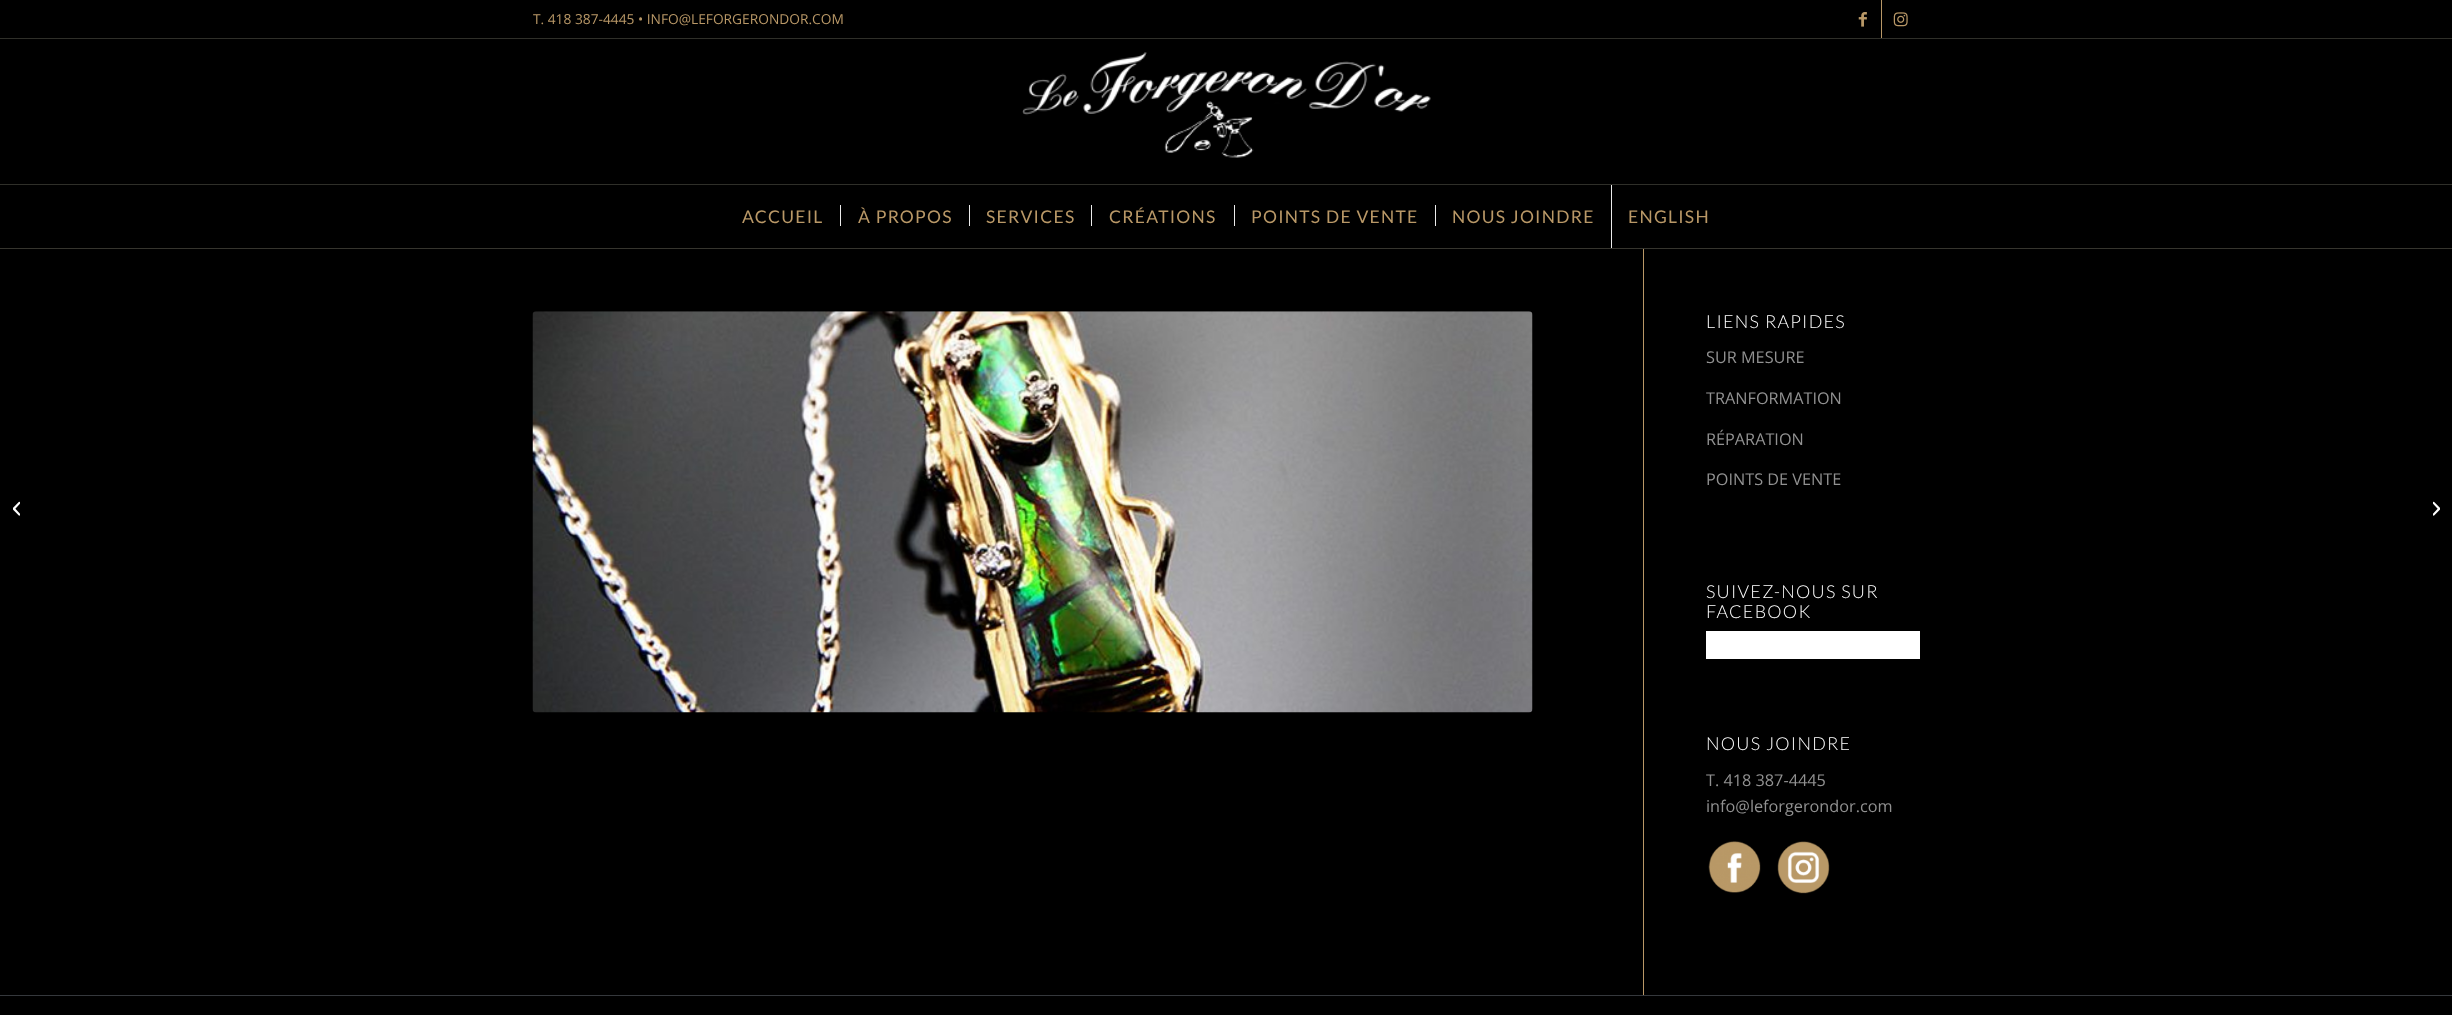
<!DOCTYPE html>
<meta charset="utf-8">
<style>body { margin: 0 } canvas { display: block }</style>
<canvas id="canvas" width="2452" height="1015"></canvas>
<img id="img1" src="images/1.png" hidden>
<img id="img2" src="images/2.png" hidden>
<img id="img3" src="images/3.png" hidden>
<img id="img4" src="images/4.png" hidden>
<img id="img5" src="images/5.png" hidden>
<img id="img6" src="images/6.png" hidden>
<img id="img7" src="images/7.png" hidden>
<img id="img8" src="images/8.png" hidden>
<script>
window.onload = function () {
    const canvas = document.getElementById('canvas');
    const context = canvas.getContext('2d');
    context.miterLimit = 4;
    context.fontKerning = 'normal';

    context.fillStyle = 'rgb(0, 0, 0)';
    context.fillRect(0, 0, 2452, 1015);
    context.fillStyle = 'rgb(47, 47, 41)';
    context.fillRect(0, 38, 2452, 1);
    context.fillStyle = 'rgb(185, 152, 103)';
    context.fillRect(1881, 0, 1, 38);
    context.drawImage(document.getElementById('img1'), 1858, 12, 9, 15);
    context.drawImage(document.getElementById('img2'), 1893, 12, 15, 15);
    context.fillStyle = 'rgb(54, 53, 46)';
    context.fillRect(0, 248, 2452, 1);
    context.drawImage(document.getElementById('img3'), 1022, 52, 409, 106);
    context.fillStyle = 'rgb(47, 47, 41)';
    context.fillRect(0, 184, 2452, 1);
    context.fillStyle = 'rgb(235, 235, 235)';
    context.fillRect(840, 205, 1, 21);
    context.fillRect(969, 205, 1, 21);
    context.fillRect(1091, 205, 1, 21);
    context.fillRect(1234, 205, 1, 21);
    context.fillRect(1435, 205, 1, 21);
    context.fillRect(1611, 185, 1, 63);
    context.drawImage(document.getElementById('img4'), 13, 501, 7, 15);
    context.drawImage(document.getElementById('img5'), 532, 311, 1001, 402);
    context.fillStyle = 'rgb(185, 152, 103)';
    context.fillRect(1643, 249, 1, 746);
    context.fillStyle = 'rgb(255, 255, 255)';
    context.fillRect(1706, 631, 214, 28);
    context.drawImage(document.getElementById('img6'), 1708, 841, 53, 52);
    context.drawImage(document.getElementById('img7'), 1777, 841, 53, 53);
    context.fillStyle = 'rgb(53, 56, 60)';
    context.fillRect(0, 995, 2452, 1);
    context.drawImage(document.getElementById('img8'), 2433, 501, 7, 15);
    context.font = '13.75px Open Sans';
    context.fillStyle = 'rgb(185, 152, 103)';
    context.fillText('T. 418 387-4445 • INFO@LEFORGERONDOR.COM', 533, 24);
    context.letterSpacing = '1.25px';
    context.font = '17.5px Lato';
    context.fillText('ACCUEIL', 742, 223);
    context.fillText('À PROPOS', 858, 223);
    context.fillText('SERVICES', 986, 223);
    context.fillText('CRÉATIONS', 1109, 223);
    context.fillText('POINTS DE VENTE', 1251, 223);
    context.fillText('NOUS JOINDRE', 1452, 223);
    context.fillText('ENGLISH', 1628, 223);
    context.font = '300 17.9px Lato';
    context.fillStyle = 'rgb(255, 255, 255)';
    context.fillText('LIENS RAPIDES', 1706, 328);
    context.letterSpacing = '0px';
    context.font = '16.25px Open Sans';
    context.fillStyle = 'rgb(145, 145, 145)';
    context.fillText('SUR MESURE', 1706, 363);
    context.fillText('TRANFORMATION', 1706, 404);
    context.fillText('RÉPARATION', 1706, 445);
    context.fillText('POINTS DE VENTE', 1706, 485);
    context.letterSpacing = '1.25px';
    context.font = '300 17.9px Lato';
    context.fillStyle = 'rgb(255, 255, 255)';
    context.fillText('SUIVEZ-NOUS SUR', 1706, 598);
    context.fillText('FACEBOOK', 1706, 618);
    context.fillText('NOUS JOINDRE', 1706, 750);
    context.letterSpacing = '0px';
    context.font = '16.25px Open Sans';
    context.fillStyle = 'rgb(145, 145, 145)';
    context.fillText('T. 418 387-4445', 1706, 786);
    context.fillText('info@leforgerondor.com', 1706, 812);
};
</script>
